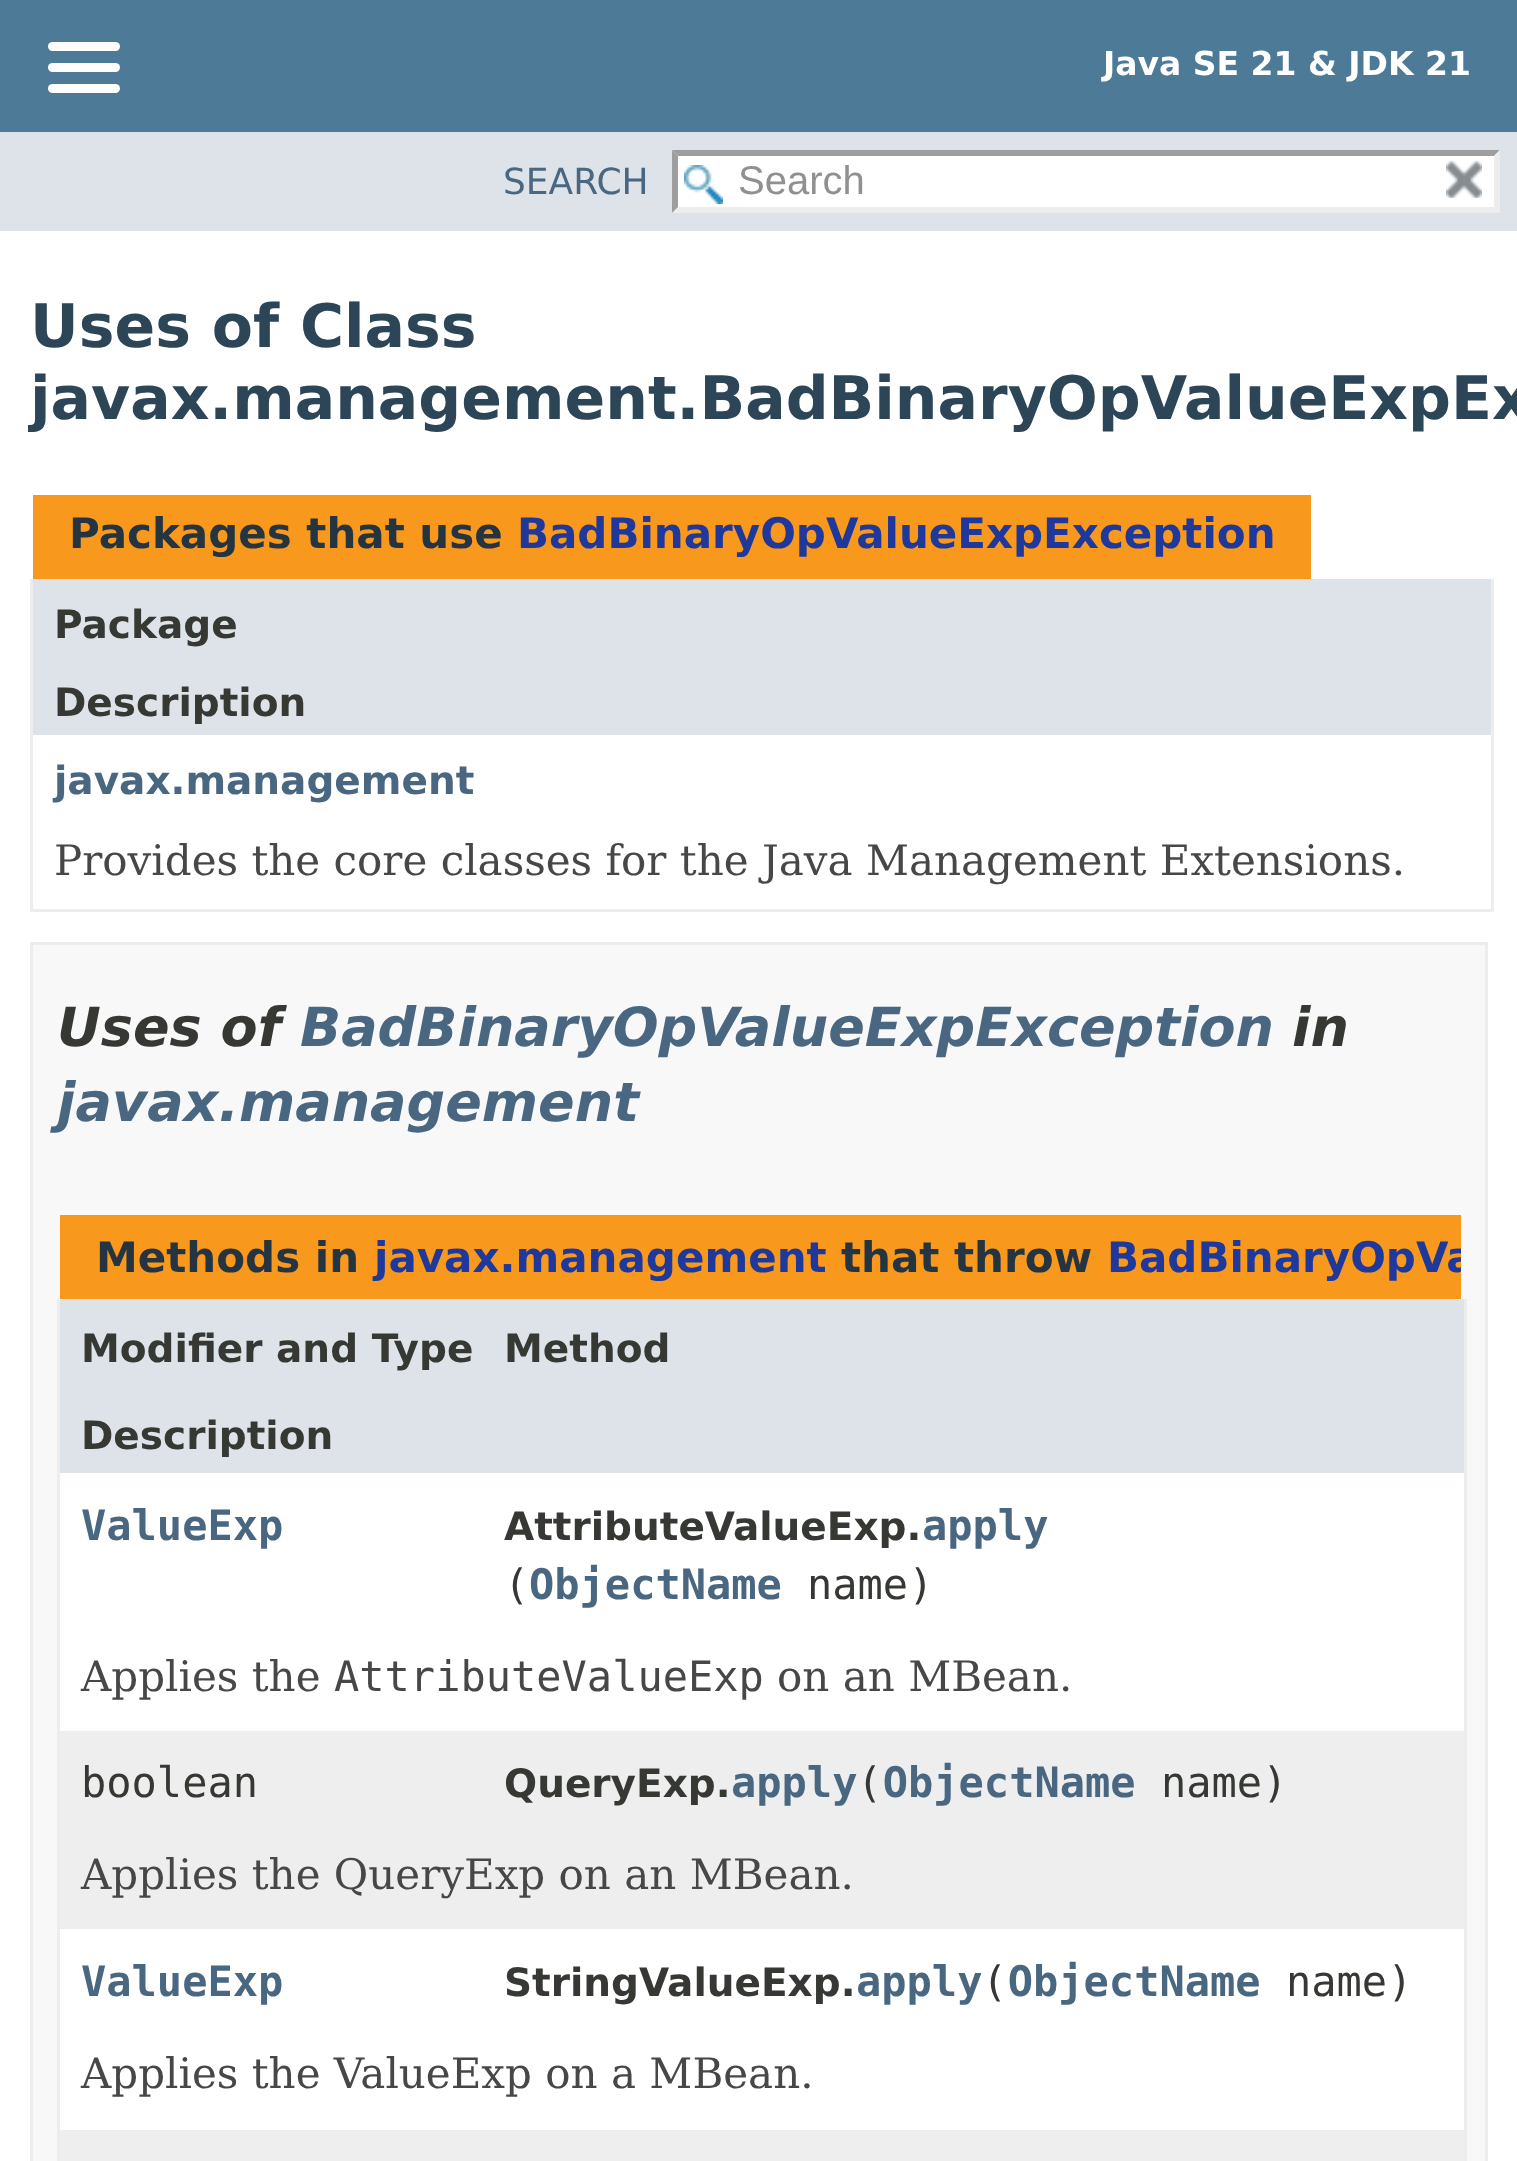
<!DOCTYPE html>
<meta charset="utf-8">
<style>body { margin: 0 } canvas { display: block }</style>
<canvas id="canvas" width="1517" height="2161"></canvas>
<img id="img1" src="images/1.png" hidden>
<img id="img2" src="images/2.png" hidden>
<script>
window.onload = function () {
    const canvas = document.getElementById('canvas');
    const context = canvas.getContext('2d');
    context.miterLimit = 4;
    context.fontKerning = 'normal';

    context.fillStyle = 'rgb(255, 255, 255)';
    context.fillRect(0, 0, 1517, 2161);
    context.fillStyle = 'rgb(77, 122, 151)';
    context.fillRect(0, 0, 1517, 132);
    context.fillStyle = 'rgb(255, 255, 255)';
    context.beginPath();
    context.roundRect(48, 42, 72, 9, 4.5);
    context.fill();
    context.beginPath();
    context.roundRect(48, 63, 72, 9, 4.5);
    context.fill();
    context.beginPath();
    context.roundRect(48, 84, 72, 9, 4.5);
    context.fill();
    context.fillStyle = 'rgb(222, 227, 233)';
    context.fillRect(0, 132, 1517, 99);
    context.fillStyle = 'rgb(255, 255, 255)';
    context.fillRect(672, 150, 828, 63);
    context.drawImage(document.getElementById('img1'), 684, 165, 39, 39);
    context.fillStyle = 'rgb(158, 158, 158)';
    context.beginPath();
    context.moveTo(672, 150);
    context.lineTo(1500, 150);
    context.lineTo(1494, 156);
    context.lineTo(678, 156);
    context.closePath();
    context.fill();
    context.fillStyle = 'rgb(237, 237, 237)';
    context.beginPath();
    context.moveTo(1500, 150);
    context.lineTo(1500, 213);
    context.lineTo(1494, 207);
    context.lineTo(1494, 156);
    context.closePath();
    context.fill();
    context.beginPath();
    context.moveTo(1500, 213);
    context.lineTo(672, 213);
    context.lineTo(678, 207);
    context.lineTo(1494, 207);
    context.closePath();
    context.fill();
    context.fillStyle = 'rgb(158, 158, 158)';
    context.beginPath();
    context.moveTo(672, 213);
    context.lineTo(672, 150);
    context.lineTo(678, 156);
    context.lineTo(678, 207);
    context.closePath();
    context.fill();
    context.drawImage(document.getElementById('img2'), 1446, 160, 36, 38);
    context.fillStyle = 'rgb(248, 152, 29)';
    context.fillRect(33, 495, 1278, 84);
    context.fillStyle = 'rgb(237, 237, 237)';
    context.fillRect(1491, 579, 3, 333);
    context.fillRect(30, 909, 1464, 3);
    context.fillRect(30, 579, 3, 333);
    context.fillStyle = 'rgb(222, 227, 233)';
    context.fillRect(33, 579, 1458, 156);
    context.fillStyle = 'rgb(248, 248, 248)';
    context.beginPath();
    context.rect(31.5, 943.5, 1455, 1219);
    context.fill();
    context.strokeStyle = 'rgb(237, 237, 237)';
    context.lineWidth = 3;
    context.stroke();
    context.fillStyle = 'rgb(248, 152, 29)';
    context.fillRect(60, 1215, 1401, 84);
    context.fillStyle = 'rgb(237, 237, 237)';
    context.fillRect(1464, 1299, 3, 862);
    context.fillRect(57, 1299, 3, 862);
    context.fillStyle = 'rgb(222, 227, 233)';
    context.fillRect(60, 1299, 1404, 174);
    context.fillStyle = 'rgb(255, 255, 255)';
    context.fillRect(60, 1473, 1404, 258);
    context.fillStyle = 'rgb(238, 238, 239)';
    context.fillRect(60, 1731, 1404, 198);
    context.fillStyle = 'rgb(255, 255, 255)';
    context.fillRect(60, 1929, 1404, 201);
    context.fillStyle = 'rgb(238, 238, 239)';
    context.fillRect(60, 2130, 1404, 31);
    context.font = 'bold 33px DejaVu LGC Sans';
    context.fillStyle = 'rgb(255, 255, 255)';
    context.fillText('Java SE 21 & JDK 21', 1103, 75);
    context.font = '36px DejaVu LGC Sans';
    context.fillStyle = 'rgb(74, 103, 130)';
    context.fillText('SEARCH', 503, 194);
    context.font = '40px Liberation Sans';
    context.fillStyle = 'rgb(144, 144, 144)';
    context.fillText('Search', 738, 194);
    context.font = 'bold 60px DejaVu LGC Sans';
    context.fillStyle = 'rgb(44, 69, 87)';
    context.fillText('Uses of Class', 30, 347);
    context.fillText('javax.management.BadBinaryOpValueExpEx', 30, 419);
    context.font = 'bold 42px DejaVu LGC Sans';
    context.fillStyle = 'rgb(37, 52, 65)';
    context.fillText('Packages that use', 69, 548);
    context.fillStyle = 'rgb(31, 56, 156)';
    context.fillText('BadBinaryOpValueExpException', 517, 548);
    context.font = 'bold 39px DejaVu LGC Sans';
    context.fillStyle = 'rgb(53, 56, 51)';
    context.fillText('Package', 54, 638);
    context.fillText('Description', 54, 716);
    context.fillStyle = 'rgb(74, 103, 130)';
    context.fillText('javax.management', 54, 794);
    context.font = '42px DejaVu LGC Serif';
    context.fillStyle = 'rgb(71, 71, 71)';
    context.fillText('Provides the core classes for the Java Management Extensions.', 54, 875);
    context.font = 'italic bold 54px DejaVu LGC Sans';
    context.fillStyle = 'rgb(53, 56, 51)';
    context.fillText('Uses of', 57, 1046);
    context.fillStyle = 'rgb(74, 103, 130)';
    context.fillText('BadBinaryOpValueExpException', 300, 1046);
    context.fillStyle = 'rgb(53, 56, 51)';
    context.fillText('in', 1292, 1046);
    context.fillStyle = 'rgb(74, 103, 130)';
    context.fillText('javax.management', 57, 1121);
    context.font = 'bold 42px DejaVu LGC Sans';
    context.fillStyle = 'rgb(37, 52, 65)';
    context.fillText('Methods in', 96, 1272);
    context.fillStyle = 'rgb(31, 56, 156)';
    context.fillText('javax.management', 374, 1272);
    context.fillStyle = 'rgb(37, 52, 65)';
    context.fillText('that throw', 841, 1272);
    context.save();
    context.beginPath();
    context.rect(57, 1185, 1404, 114);
    context.clip();
    context.fillStyle = 'rgb(31, 56, 156)';
    context.fillText('BadBinaryOpVa', 1107, 1272);
    context.restore();
    context.font = 'bold 39px DejaVu LGC Sans';
    context.fillStyle = 'rgb(53, 56, 51)';
    context.fillText('Modifier and Type', 81, 1362);
    context.fillText('Method', 504, 1362);
    context.fillText('Description', 81, 1449);
    context.font = 'bold 42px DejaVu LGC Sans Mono';
    context.fillStyle = 'rgb(74, 103, 130)';
    context.fillText('ValueExp', 81, 1540);
    context.font = 'bold 39px DejaVu LGC Sans';
    context.fillStyle = 'rgb(53, 56, 51)';
    context.fillText('AttributeValueExp.', 504, 1540);
    context.font = 'bold 42px DejaVu LGC Sans Mono';
    context.fillStyle = 'rgb(74, 103, 130)';
    context.fillText('apply', 922, 1540);
    context.font = '42px DejaVu LGC Sans Mono';
    context.fillStyle = 'rgb(53, 56, 51)';
    context.fillText('(', 504, 1599);
    context.font = 'bold 42px DejaVu LGC Sans Mono';
    context.fillStyle = 'rgb(74, 103, 130)';
    context.fillText('ObjectName', 529, 1599);
    context.font = '42px DejaVu LGC Sans Mono';
    context.fillStyle = 'rgb(53, 56, 51)';
    context.fillText('name)', 807, 1599);
    context.font = '42px DejaVu LGC Serif';
    context.fillStyle = 'rgb(71, 71, 71)';
    context.fillText('Applies the', 81, 1691);
    context.font = '42px DejaVu LGC Sans Mono';
    context.fillText('AttributeValueExp', 334, 1691);
    context.font = '42px DejaVu LGC Serif';
    context.fillText('on an MBean.', 777, 1691);
    context.font = '42px DejaVu LGC Sans Mono';
    context.fillStyle = 'rgb(53, 56, 51)';
    context.fillText('boolean', 81, 1797);
    context.font = 'bold 42px DejaVu LGC Sans Mono';
    context.fillStyle = 'rgb(74, 103, 130)';
    context.fillText('apply ObjectName', 731, 1797);
    context.font = 'bold 39px DejaVu LGC Sans';
    context.fillStyle = 'rgb(53, 56, 51)';
    context.fillText('QueryExp.', 504, 1797);
    context.font = '42px DejaVu LGC Sans Mono';
    context.fillText('(', 857, 1797);
    context.fillText('name)', 1161, 1797);
    context.font = '42px DejaVu LGC Serif';
    context.fillStyle = 'rgb(71, 71, 71)';
    context.fillText('Applies the QueryExp on an MBean.', 81, 1889);
    context.font = 'bold 42px DejaVu LGC Sans Mono';
    context.fillStyle = 'rgb(74, 103, 130)';
    context.fillText('ValueExp', 81, 1996);
    context.fillText('apply ObjectName', 856, 1996);
    context.font = 'bold 39px DejaVu LGC Sans';
    context.fillStyle = 'rgb(53, 56, 51)';
    context.fillText('StringValueExp.', 504, 1996);
    context.font = '42px DejaVu LGC Sans Mono';
    context.fillText('(', 982, 1996);
    context.fillText('name)', 1286, 1996);
    context.font = '42px DejaVu LGC Serif';
    context.fillStyle = 'rgb(71, 71, 71)';
    context.fillText('Applies the ValueExp on a MBean.', 81, 2088);
};
</script>
